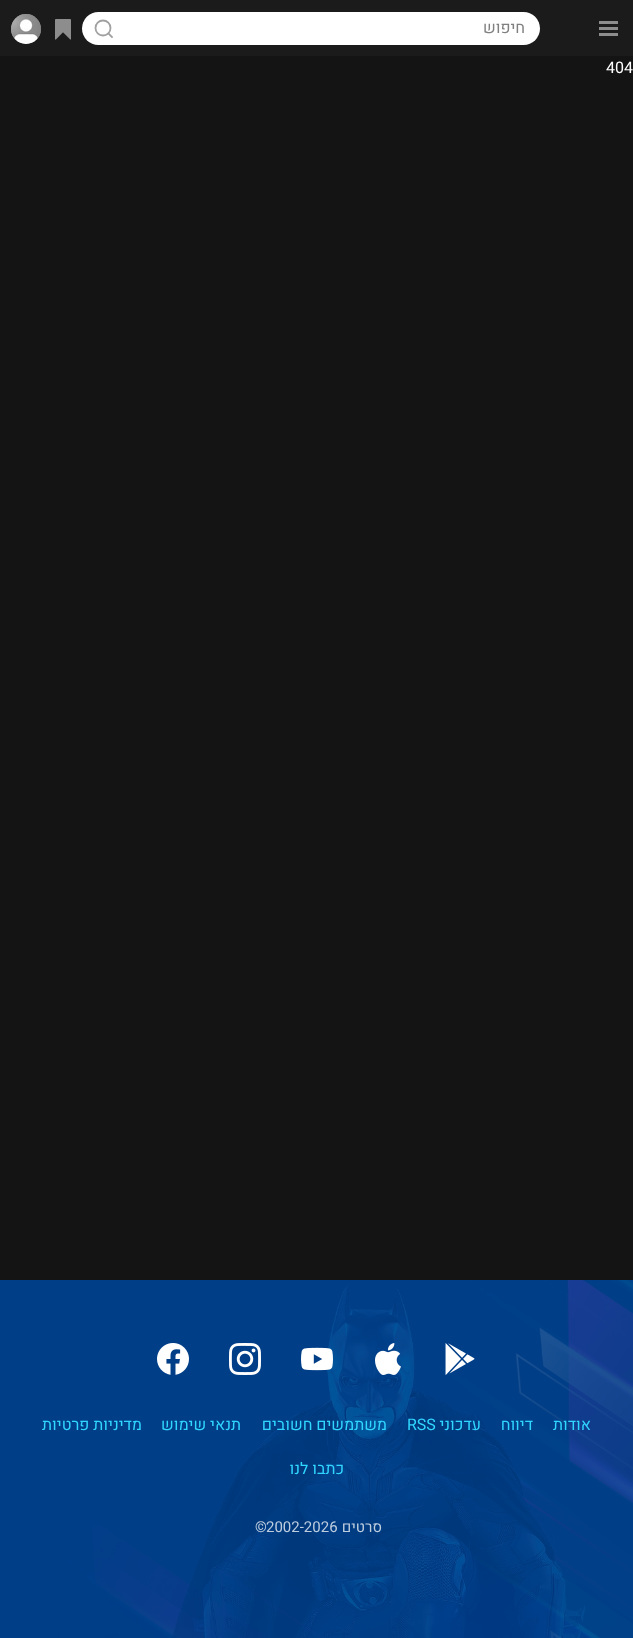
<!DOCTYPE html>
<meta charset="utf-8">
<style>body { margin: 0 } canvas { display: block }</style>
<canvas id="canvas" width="633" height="1638"></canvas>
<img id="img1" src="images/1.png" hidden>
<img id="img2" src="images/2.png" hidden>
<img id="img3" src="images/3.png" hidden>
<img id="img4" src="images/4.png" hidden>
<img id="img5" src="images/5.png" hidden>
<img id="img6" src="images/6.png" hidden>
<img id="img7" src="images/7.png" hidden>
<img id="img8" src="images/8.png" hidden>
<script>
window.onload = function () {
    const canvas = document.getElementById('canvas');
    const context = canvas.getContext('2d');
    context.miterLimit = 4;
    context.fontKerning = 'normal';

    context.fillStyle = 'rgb(20, 20, 20)';
    context.fillRect(0, 0, 633, 1638);
    context.fillStyle = 'rgb(27, 27, 27)';
    context.fillRect(0, 0, 633, 56);
    context.fillStyle = 'rgb(141, 141, 141)';
    context.fillRect(599, 27, 19, 3);
    context.fillRect(599, 21, 19, 3);
    context.fillRect(599, 33, 19, 3);
    context.fillStyle = 'rgb(255, 255, 255)';
    context.beginPath();
    context.roundRect(82, 12, 458, 33, 16.5);
    context.fill();
    context.beginPath();
    context.arc(103, 28, 7.5, 0, 2 * Math.PI);
    context.strokeStyle = 'rgb(161, 161, 161)';
    context.lineWidth = 1.8;
    context.stroke();
    context.beginPath();
    context.moveTo(112, 37);
    context.lineTo(108.5, 33.5);
    context.lineCap = 'square';
    context.stroke();
    context.drawImage(document.getElementById('img1'), 55, 19, 16, 21);
    context.fillStyle = 'rgb(141, 141, 141)';
    context.beginPath();
    context.arc(26, 29, 15, 0, 2 * Math.PI);
    context.fill();
    context.drawImage(document.getElementById('img2'), 11, 14, 30, 30);
    context.drawImage(document.getElementById('img3'), 0, 1280, 633, 358);
    context.drawImage(document.getElementById('img4'), 445, 1343, 30, 32);
    context.drawImage(document.getElementById('img5'), 375, 1343, 26, 32);
    context.drawImage(document.getElementById('img6'), 301, 1347, 32, 24);
    context.drawImage(document.getElementById('img7'), 229, 1343, 32, 32);
    context.drawImage(document.getElementById('img8'), 157, 1343, 32, 32);
    context.direction = 'rtl';
    context.font = '16px Heebo';
    context.fillStyle = 'rgb(128, 128, 128)';
    context.fillText('חיפוש', 525, 33);
    context.direction = 'ltr';
    context.fillStyle = 'rgb(255, 255, 255)';
    context.fillText('404', 606, 73);
    context.direction = 'rtl';
    context.fillStyle = 'rgb(48, 214, 255)';
    context.fillText('אודות', 591, 1430);
    context.fillText('דיווח', 533, 1430);
    context.fillText('עדכוני', 481, 1430);
    context.direction = 'ltr';
    context.fillText('RSS', 407, 1430);
    context.direction = 'rtl';
    context.fillText('משתמשים חשובים', 387, 1430);
    context.fillText('תנאי שימוש', 241, 1430);
    context.fillText('מדיניות פרטיות', 142, 1430);
    context.fillText('כתבו לנו', 344, 1474);
    context.font = '15px Heebo';
    context.fillStyle = 'rgb(191, 206, 223)';
    context.fillText('סרטים', 382, 1532);
    context.direction = 'ltr';
    context.fillText('2002-2026', 266, 1532);
    context.fillText('©', 255, 1532);
};
</script>
